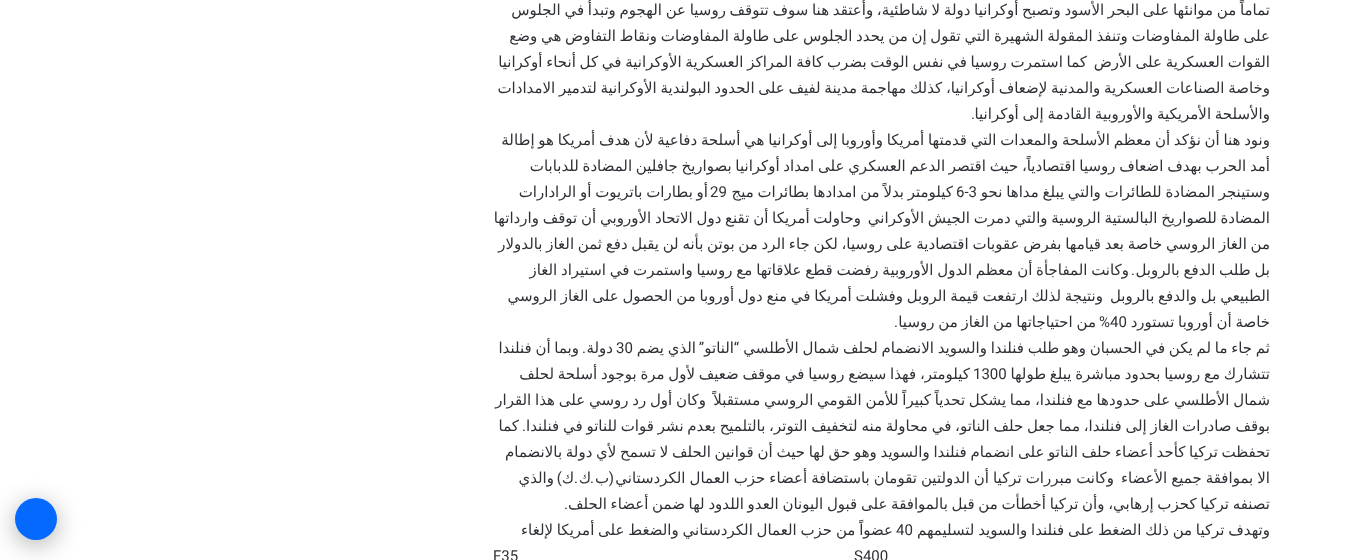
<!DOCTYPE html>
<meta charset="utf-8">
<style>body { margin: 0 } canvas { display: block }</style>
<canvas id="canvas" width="1370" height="560"></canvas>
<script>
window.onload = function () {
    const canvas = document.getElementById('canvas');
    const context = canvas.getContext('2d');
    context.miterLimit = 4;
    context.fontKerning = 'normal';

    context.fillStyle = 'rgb(255, 255, 255)';
    context.fillRect(0, 0, 1370, 560);
    context.fillStyle = 'rgba(0, 0, 0, 0.3)';
    context.filter = 'blur(12.5px)';
    context.beginPath();
    context.roundRect(15, 503, 42, 42, 21);
    context.fill();
    context.filter = 'none';
    context.fillStyle = 'rgb(6, 105, 255)';
    context.beginPath();
    context.arc(36, 519, 21, 0, 2 * Math.PI);
    context.fill();
    context.wordSpacing = '-1.05px';
    context.direction = 'rtl';
    context.font = '15px DejaVu Sans';
    context.fillStyle = 'rgb(46, 49, 54)';
    context.fillText('تماماً من موانئها على البحر الأسود وتصبح أوكرانيا دولة لا شاطئية، وأعتقد هنا سوف تتوقف روسيا عن الهجوم وتبدأ في الجلوس', 1270, 15);
    context.fillText('على طاولة المفاوضات وتنفذ المقولة الشهيرة التي تقول إن من يحدد الجلوس على طاولة المفاوضات ونقاط التفاوض هي وضع', 1270, 41);
    context.wordSpacing = '-1px';
    context.fillText('القوات العسكرية على الأرض', 1270, 67);
    context.fillText('كما استمرت روسيا في نفس الوقت بضرب كافة المراكز العسكرية الأوكرانية في كل أنحاء أوكرانيا', 1087, 67);
    context.wordSpacing = '-1.05px';
    context.fillText('وخاصة الصناعات العسكرية والمدنية لإضعاف أوكرانيا، كذلك مهاجمة مدينة لفيف على الحدود البولندية الأوكرانية لتدمير الامدادات', 1270, 93);
    context.fillText('والأسلحة الأمريكية والأوروبية القادمة إلى أوكرانيا', 1270, 119);
    context.wordSpacing = '0px';
    context.font = '15px Roboto';
    context.fillText('.', 975, 119);
    context.wordSpacing = '-1.05px';
    context.font = '15px DejaVu Sans';
    context.fillText('ونود هنا أن نؤكد أن معظم الأسلحة والمعدات التي قدمتها أمريكا وأوروبا إلى أوكرانيا هي أسلحة دفاعية لأن هدف أمريكا هو إطالة', 1270, 145);
    context.fillText('أمد الحرب بهدف اضعاف روسيا اقتصادياً، حيث اقتصر الدعم العسكري على امداد أوكرانيا بصواريخ جافلين المضادة للدبابات', 1270, 171);
    context.fillText('وستينجر المضادة للطائرات والتي يبلغ مداها نحو', 1270, 197);
    context.wordSpacing = '-1px';
    context.fillText('كيلومتر بدلاً من امدادها بطائرات ميج', 953, 197);
    context.wordSpacing = '0px';
    context.direction = 'ltr';
    context.font = '15px Roboto';
    context.fillText('6-3', 956, 197);
    context.fillText('29', 710, 197);
    context.wordSpacing = '-1px';
    context.direction = 'rtl';
    context.font = '15px DejaVu Sans';
    context.fillText('أو بطارات باتريوت أو الرادارات', 708, 197);
    context.fillText('وحاولت أمريكا أن تقنع دول الاتحاد الأوروبي أن توقف وارداتها', 861, 223);
    context.fillText('المضادة للصواريخ البالستية الروسية والتي دمرت الجيش الأوكراني', 1270, 223);
    context.wordSpacing = '-1.05px';
    context.fillText('من الغاز الروسي خاصة بعد قيامها بفرض عقوبات اقتصادية على روسيا، لكن جاء الرد من بوتن بأنه لن يقبل دفع ثمن الغاز بالدولار', 1270, 249);
    context.wordSpacing = '-1px';
    context.fillText('بل طلب الدفع بالروبل', 1270, 275);
    context.fillText('وكانت المفاجأة أن معظم الدول الأوروبية رفضت قطع علاقاتها مع روسيا واستمرت في استيراد الغاز', 1129, 275);
    context.wordSpacing = '0px';
    context.font = '15px Roboto';
    context.fillText('.', 1135, 275);
    context.wordSpacing = '-1px';
    context.font = '15px DejaVu Sans';
    context.fillText('ونتيجة لذلك ارتفعت قيمة الروبل وفشلت أمريكا في منع دول أوروبا من الحصول على الغاز الروسي', 1103, 301);
    context.fillText('الطبيعي بل والدفع بالروبل', 1270, 301);
    context.wordSpacing = '-1.05px';
    context.fillText('خاصة أن أوروبا تستورد', 1270, 327);
    context.wordSpacing = '0px';
    context.direction = 'ltr';
    context.font = '15px Roboto';
    context.fillText('40', 1110, 327);
    context.wordSpacing = '-1px';
    context.direction = 'rtl';
    context.font = '15px DejaVu Sans';
    context.fillText('من احتياجاتها من الغاز من روسيا', 1096, 327);
    context.wordSpacing = '0px';
    context.font = '15px Roboto';
    context.fillText('%', 1110, 327);
    context.fillText('.', 898, 327);
    context.wordSpacing = '-1px';
    context.font = '15px DejaVu Sans';
    context.fillText('ثم جاء ما لم يكن في الحسبان وهو طلب فنلندا والسويد الانضمام لحلف شمال الأطلسي', 1270, 353);
    context.wordSpacing = '0px';
    context.font = '15px Roboto';
    context.fillText('“', 739, 353);
    context.fillText('”', 704, 353);
    context.font = '15px DejaVu Sans';
    context.fillText('الناتو', 734, 353);
    context.wordSpacing = '-1px';
    context.fillText('الذي يضم', 696, 353);
    context.wordSpacing = '0px';
    context.direction = 'ltr';
    context.font = '15px Roboto';
    context.fillText('30', 616, 353);
    context.direction = 'rtl';
    context.font = '15px DejaVu Sans';
    context.fillText('دولة', 613, 353);
    context.font = '15px Roboto';
    context.fillText('.', 586, 353);
    context.wordSpacing = '-1px';
    context.font = '15px DejaVu Sans';
    context.fillText('وبما أن فنلندا', 579, 353);
    context.wordSpacing = '-1.05px';
    context.fillText('تتشارك مع روسيا بحدود مباشرة يبلغ طولها', 1270, 379);
    context.wordSpacing = '-1px';
    context.fillText('كيلومتر، فهذا سيضع روسيا في موقف ضعيف لأول مرة بوجود أسلحة لحلف', 970, 379);
    context.wordSpacing = '0px';
    context.direction = 'ltr';
    context.font = '15px Roboto';
    context.fillText('1300', 973, 379);
    context.wordSpacing = '-1px';
    context.direction = 'rtl';
    context.font = '15px DejaVu Sans';
    context.fillText('شمال الأطلسي على حدودها مع فنلندا، مما يشكل تحدياً كبيراً للأمن القومي الروسي مستقبلاً', 1270, 405);
    context.fillText('وكان أول رد روسي على هذا القرار', 706, 405);
    context.fillText('بوقف صادرات الغاز إلى فنلندا، مما جعل حلف الناتو، في محاولة منه لتخفيف التوتر، بالتلميح بعدم نشر قوات للناتو في فنلندا', 1270, 431);
    context.wordSpacing = '0px';
    context.font = '15px Roboto';
    context.fillText('.', 526, 431);
    context.font = '15px DejaVu Sans';
    context.fillText('كما', 519, 431);
    context.wordSpacing = '-1.05px';
    context.fillText('تحفظت تركيا كأحد أعضاء حلف الناتو على انضمام فنلندا والسويد وهو حق لها حيث أن قوانين الحلف لا تسمح لأي دولة بالانضمام', 1270, 457);
    context.wordSpacing = '-0.75px';
    context.fillText('الا بموافقة جميع الأعضاء', 1270, 483);
    context.fillText('وكانت مبررات تركيا أن الدولتين تقومان باستضافة أعضاء حزب العمال الكردستاني', 1114, 483);
    context.wordSpacing = '0px';
    context.font = '15px Roboto';
    context.fillText('(', 614, 483);
    context.font = '15px DejaVu Sans';
    context.fillText('ب', 609, 483);
    context.font = '15px Roboto';
    context.fillText('.', 594, 483);
    context.font = '15px DejaVu Sans';
    context.fillText('ك', 591, 483);
    context.font = '15px Roboto';
    context.fillText('.', 578, 483);
    context.font = '15px DejaVu Sans';
    context.fillText('ك', 574, 483);
    context.font = '15px Roboto';
    context.fillText(')', 562, 483);
    context.font = '15px DejaVu Sans';
    context.fillText('والذي', 554, 483);
    context.wordSpacing = '-1.05px';
    context.fillText('تصنفه تركيا كحزب إرهابي، وأن تركيا أخطأت من قبل بالموافقة على قبول اليونان العدو اللدود لها ضمن أعضاء الحلف', 1270, 509);
    context.wordSpacing = '0px';
    context.font = '15px Roboto';
    context.fillText('.', 568, 509);
    context.wordSpacing = '-1.05px';
    context.font = '15px DejaVu Sans';
    context.fillText('وتهدف تركيا من ذلك الضغط على فنلندا والسويد لتسليمهم', 1270, 535);
    context.wordSpacing = '-1px';
    context.fillText('عضواً من حزب العمال الكردستاني والضغط على أمريكا لإلغاء', 893, 535);
    context.wordSpacing = '0px';
    context.direction = 'ltr';
    context.font = '15px Roboto';
    context.fillText('40', 896, 535);
    context.fillText('S400', 854, 561);
    context.fillText('F35', 493, 561);
};
</script>
